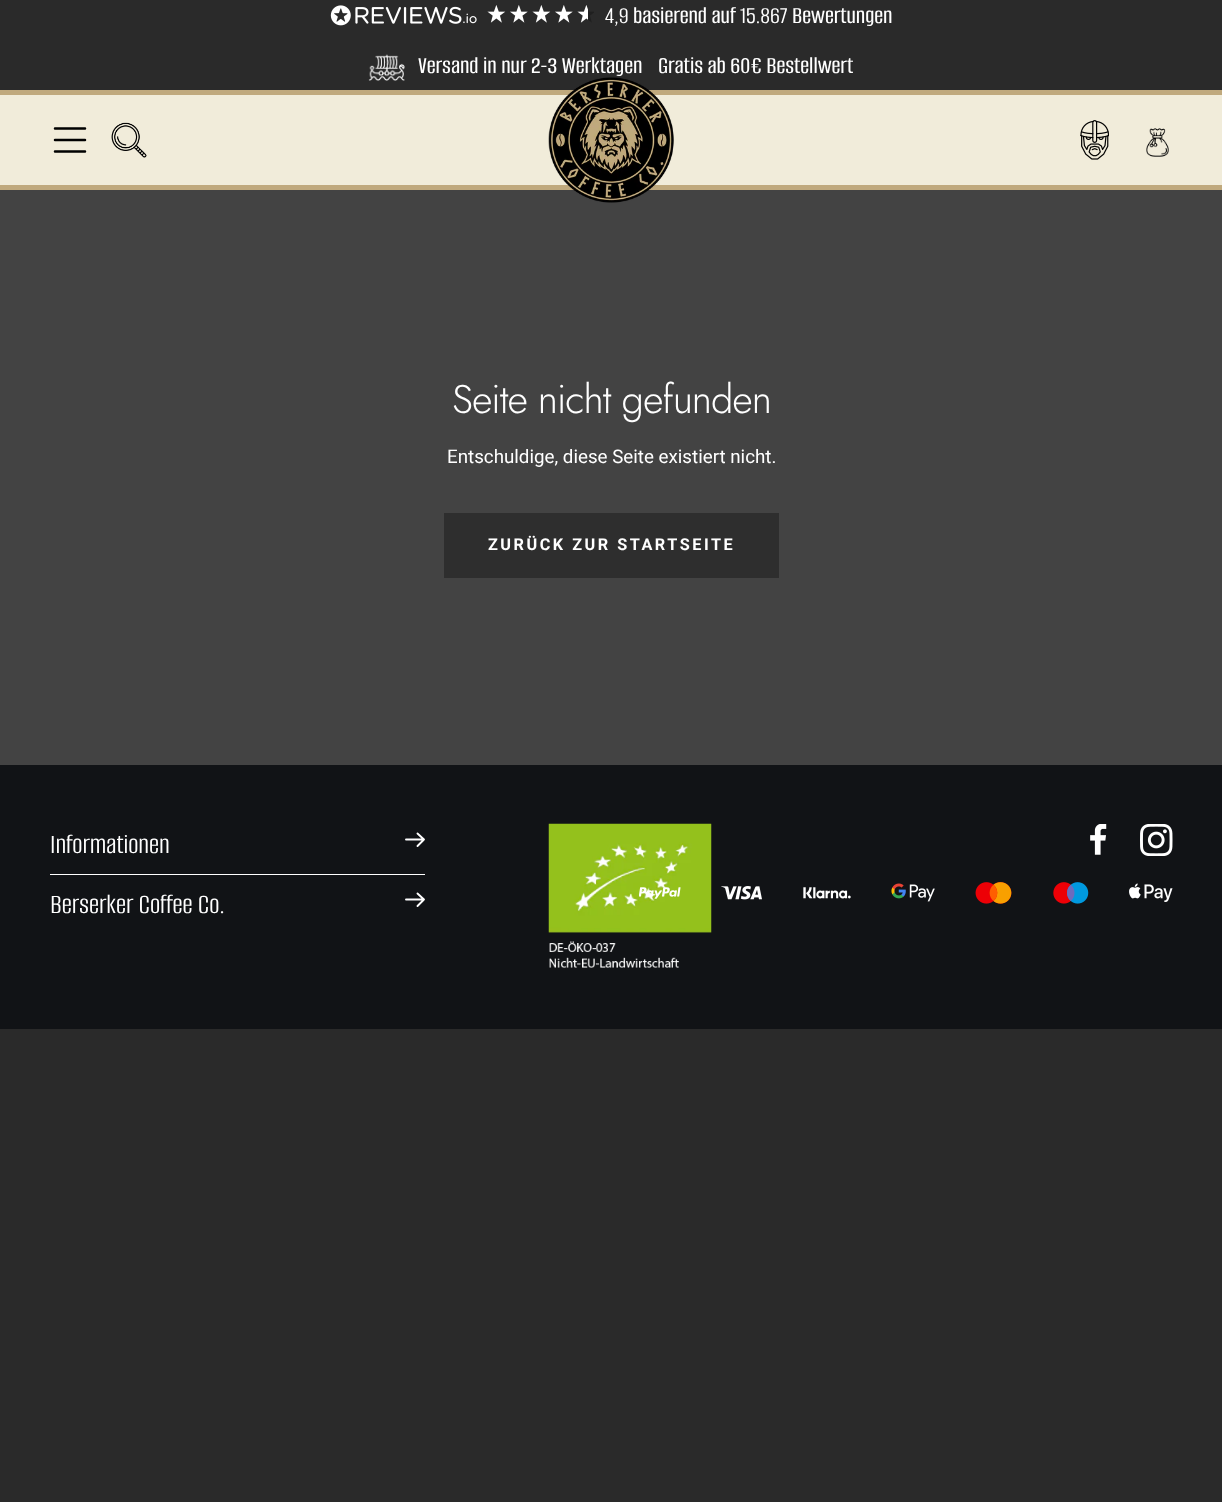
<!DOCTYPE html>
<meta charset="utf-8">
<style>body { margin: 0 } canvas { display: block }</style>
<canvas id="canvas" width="1222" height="1502"></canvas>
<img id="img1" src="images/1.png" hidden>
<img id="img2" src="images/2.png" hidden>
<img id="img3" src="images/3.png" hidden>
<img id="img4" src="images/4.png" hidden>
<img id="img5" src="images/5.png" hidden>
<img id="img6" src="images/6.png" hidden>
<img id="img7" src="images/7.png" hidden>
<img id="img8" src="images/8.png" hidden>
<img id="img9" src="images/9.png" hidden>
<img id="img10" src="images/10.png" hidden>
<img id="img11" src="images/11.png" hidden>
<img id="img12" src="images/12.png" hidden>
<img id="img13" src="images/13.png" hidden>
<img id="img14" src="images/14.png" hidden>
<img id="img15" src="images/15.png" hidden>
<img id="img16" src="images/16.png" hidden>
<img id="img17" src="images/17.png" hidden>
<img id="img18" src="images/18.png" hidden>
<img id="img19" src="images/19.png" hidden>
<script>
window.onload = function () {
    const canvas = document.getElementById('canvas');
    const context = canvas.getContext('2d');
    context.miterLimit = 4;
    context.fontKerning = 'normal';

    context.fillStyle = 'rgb(42, 42, 42)';
    context.fillRect(0, 0, 1222, 1502);
    context.drawImage(document.getElementById('img1'), 330, 5, 147, 21);
    context.drawImage(document.getElementById('img2'), 487, 5, 19, 18);
    context.drawImage(document.getElementById('img3'), 510, 5, 18, 18);
    context.drawImage(document.getElementById('img2'), 532, 5, 19, 18);
    context.drawImage(document.getElementById('img3'), 555, 5, 18, 18);
    context.drawImage(document.getElementById('img4'), 577, 5, 17, 18);
    context.drawImage(document.getElementById('img5'), 368, 54, 37, 27);
    context.fillStyle = 'rgb(241, 236, 218)';
    context.fillRect(0, 95, 1222, 90);
    context.fillStyle = 'rgb(192, 169, 125)';
    context.fillRect(0, 90, 1222, 5);
    context.fillRect(0, 185, 1222, 5);
    context.beginPath();
    context.moveTo(55, 128.5);
    context.lineTo(85, 128.5);
    context.moveTo(55, 140);
    context.lineTo(85, 140);
    context.moveTo(55, 151.5);
    context.lineTo(85, 151.5);
    context.strokeStyle = 'rgb(0, 0, 0)';
    context.lineWidth = 2.5;
    context.lineCap = 'round';
    context.lineJoin = 'round';
    context.stroke();
    context.drawImage(document.getElementById('img6'), 111, 122, 36, 36);
    context.fillStyle = 'rgb(67, 67, 67)';
    context.fillRect(0, 190, 1222, 575);
    context.drawImage(document.getElementById('img7'), 548, 77, 126, 126);
    context.drawImage(document.getElementById('img8'), 1080, 120, 29, 40);
    context.drawImage(document.getElementById('img9'), 1146, 128, 23, 29);
    context.fillStyle = 'rgb(46, 46, 46)';
    context.fillRect(444, 513, 335, 65);
    context.fillStyle = 'rgb(17, 19, 22)';
    context.fillRect(0, 765, 1222, 264);
    context.fillStyle = 'rgb(255, 255, 255)';
    context.fillRect(50, 874, 375, 1);
    context.beginPath();
    context.moveTo(424, 839.5);
    context.lineTo(406, 839.5);
    context.moveTo(417.5, 846);
    context.lineTo(424, 839.5);
    context.moveTo(417.5, 833.5);
    context.lineTo(424, 839.5);
    context.strokeStyle = 'rgb(255, 255, 255)';
    context.lineWidth = 1.9;
    context.stroke();
    context.beginPath();
    context.moveTo(424, 899.5);
    context.lineTo(406, 899.5);
    context.moveTo(417.5, 906);
    context.lineTo(424, 899.5);
    context.moveTo(417.5, 893.5);
    context.lineTo(424, 899.5);
    context.stroke();
    context.drawImage(document.getElementById('img10'), 548, 823, 164, 145);
    context.drawImage(document.getElementById('img11'), 1090, 824, 17, 31);
    context.drawImage(document.getElementById('img12'), 1140, 824, 33, 32);
    context.drawImage(document.getElementById('img13'), 639, 887, 42, 12);
    context.drawImage(document.getElementById('img14'), 721, 886, 41, 14);
    context.drawImage(document.getElementById('img15'), 803, 887, 48, 12);
    context.drawImage(document.getElementById('img16'), 891, 883, 44, 19);
    context.drawImage(document.getElementById('img17'), 975, 882, 37, 22);
    context.drawImage(document.getElementById('img18'), 1053, 882, 36, 22);
    context.drawImage(document.getElementById('img19'), 1129, 883, 44, 19);
    context.font = '25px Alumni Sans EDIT';
    context.fillText('4,9', 605, 23);
    context.font = '500 25px Alumni Sans EDIT';
    context.fillText('basierend auf', 633, 23);
    context.font = '25px Alumni Sans EDIT';
    context.fillText('15.867', 740, 23);
    context.font = '500 25px Alumni Sans EDIT';
    context.fillText('Bewertungen', 792, 23);
    context.fillText('Versand in nur 2-3 Werktagen', 418, 73);
    context.fillText('Gratis ab 60€ Bestellwert', 658, 73);
    context.letterSpacing = '-1px';
    context.font = '300 40px Jost';
    context.fillText('Seite nicht gefunden', 452, 413);
    context.letterSpacing = '0px';
    context.font = '18.75px Roboto';
    context.fillText('Entschuldige, diese Seite existiert nicht.', 447, 463);
    context.letterSpacing = '2.5px';
    context.font = 'bold 16.25px Roboto';
    context.fillText('ZURÜCK ZUR STARTSEITE', 488, 550);
    context.letterSpacing = '0px';
    context.font = '28.75px Alumni Sans EDIT';
    context.fillText('Informationen', 50, 853);
    context.fillText('Berserker Coffee Co.', 50, 913);
};
</script>
